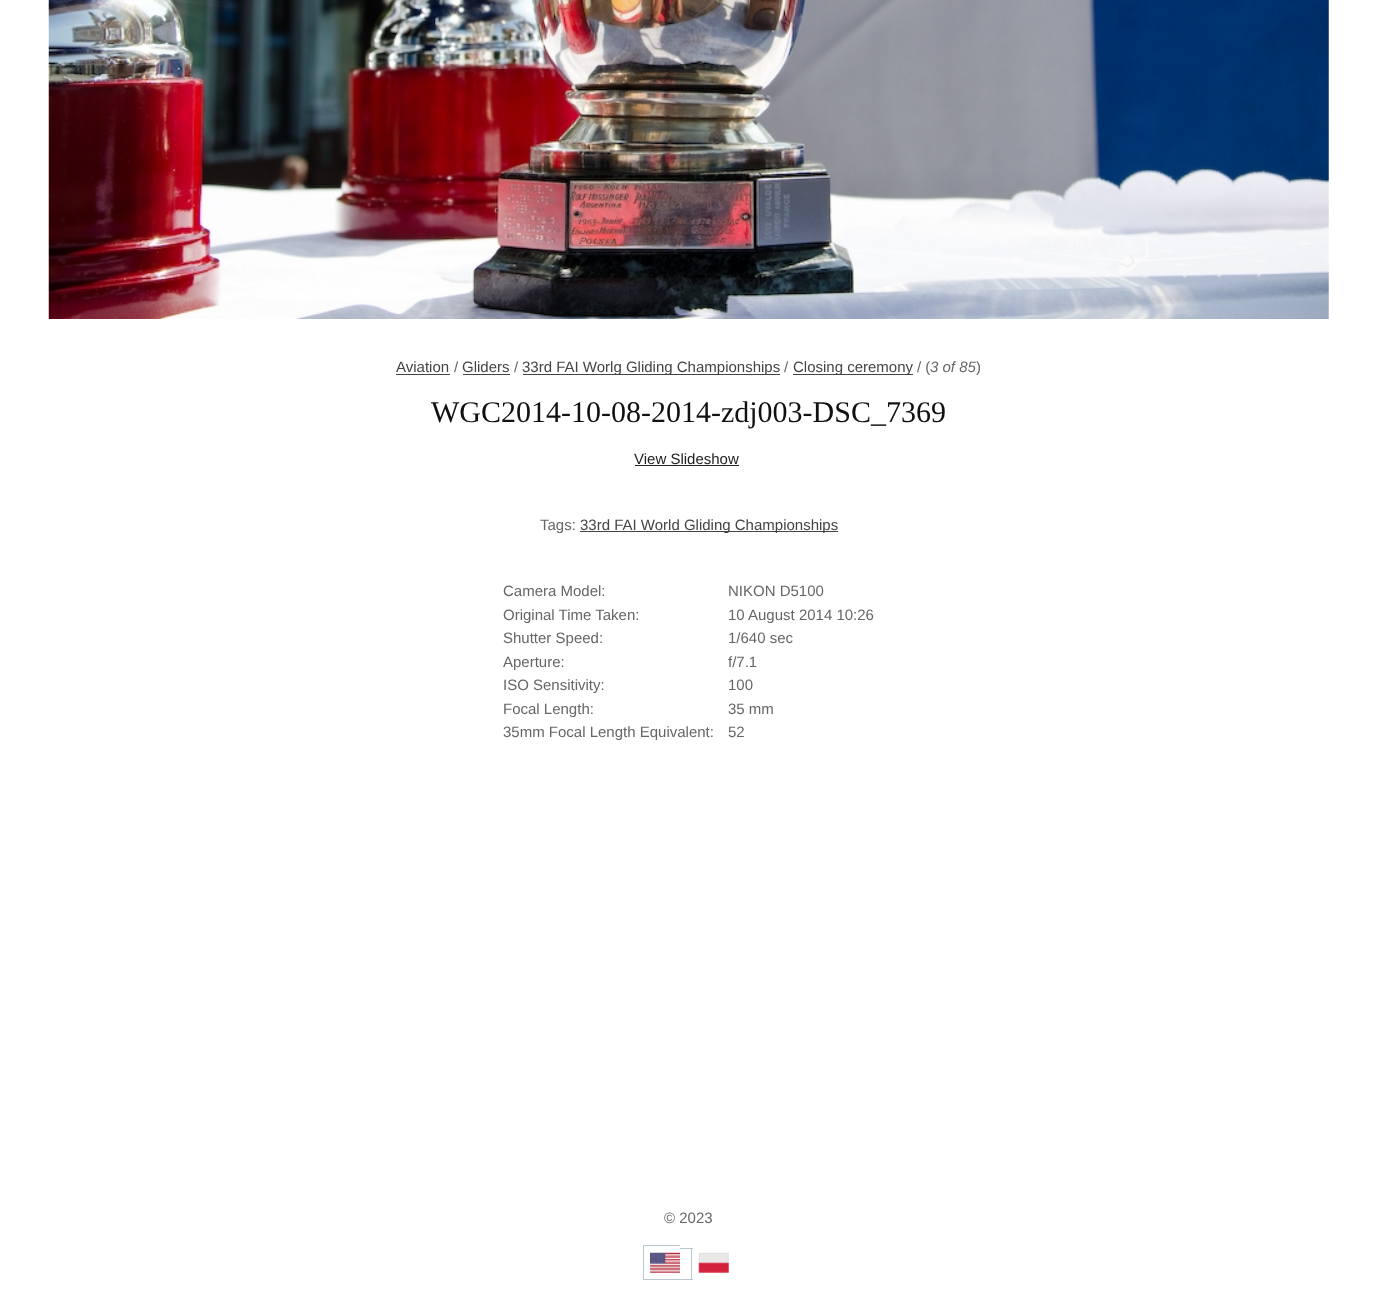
<!DOCTYPE html>
<meta charset="utf-8">
<style>body { margin: 0 } canvas { display: block }</style>
<canvas id="canvas" width="1377" height="1293"></canvas>
<img id="img1" src="images/1.png" hidden>
<img id="img2" src="images/2.png" hidden>
<img id="img3" src="images/3.png" hidden>
<script>
window.onload = function () {
    const canvas = document.getElementById('canvas');
    const context = canvas.getContext('2d');
    context.miterLimit = 4;
    context.fontKerning = 'normal';

    context.fillStyle = 'rgb(255, 255, 255)';
    context.fillRect(0, 0, 1377, 1293);
    context.drawImage(document.getElementById('img1'), 48, 0, 1281, 319);
    context.fillStyle = 'rgb(68, 68, 68)';
    context.fillRect(396, 374, 54, 1);
    context.fillRect(463, 374, 47, 1);
    context.fillRect(523, 374, 257, 1);
    context.fillRect(793, 374, 120, 1);
    context.fillStyle = 'rgb(34, 34, 34)';
    context.fillRect(635, 465, 104, 1);
    context.fillStyle = 'rgb(68, 68, 68)';
    context.fillRect(580, 531, 258, 1);
    context.fillStyle = 'rgb(186, 201, 207)';
    context.fillRect(643, 1245, 37, 1);
    context.fillRect(643, 1279, 37, 1);
    context.fillRect(643, 1245, 1, 35);
    context.fillRect(680, 1248, 13, 1);
    context.drawImage(document.getElementById('img2'), 650, 1252, 30, 21);
    context.fillRect(691, 1248, 1, 32);
    context.drawImage(document.getElementById('img3'), 698, 1252, 31, 21);
    context.fillRect(680, 1279, 13, 1);
    context.font = '15px Liberation Sans';
    context.fillStyle = 'rgb(68, 68, 68)';
    context.fillText('Aviation', 396, 372);
    context.fillStyle = 'rgb(102, 102, 102)';
    context.fillText('/', 454, 372);
    context.fillStyle = 'rgb(68, 68, 68)';
    context.fillText('Gliders', 462, 372);
    context.fillStyle = 'rgb(102, 102, 102)';
    context.fillText('/', 514, 372);
    context.fillStyle = 'rgb(68, 68, 68)';
    context.fillText('33rd FAI Worlg Gliding Championships', 522, 372);
    context.fillStyle = 'rgb(102, 102, 102)';
    context.fillText('/', 784, 372);
    context.fillStyle = 'rgb(68, 68, 68)';
    context.fillText('Closing ceremony', 793, 372);
    context.fillStyle = 'rgb(102, 102, 102)';
    context.fillText('/ (', 917, 372);
    context.font = 'italic 15px Liberation Sans';
    context.fillText('3 of 85', 930, 372);
    context.font = '15px Liberation Sans';
    context.fillText(')', 976, 372);
    context.font = '30px Liberation Serif';
    context.fillStyle = 'rgb(17, 17, 17)';
    context.fillText('WGC2014-10-08-2014-zdj003-DSC_7369', 431, 422);
    context.font = '15px Liberation Sans';
    context.fillStyle = 'rgb(34, 34, 34)';
    context.fillText('View Slideshow', 634, 464);
    context.fillStyle = 'rgb(102, 102, 102)';
    context.fillText('Tags:', 540, 530);
    context.fillStyle = 'rgb(68, 68, 68)';
    context.fillText('33rd FAI World Gliding Championships', 580, 530);
    context.fillStyle = 'rgb(102, 102, 102)';
    context.fillText('Camera Model:', 503, 596);
    context.fillText('NIKON D5100', 728, 596);
    context.fillText('Original Time Taken:', 503, 620);
    context.fillText('10 August 2014 10:26', 728, 620);
    context.fillText('Shutter Speed:', 503, 643);
    context.fillText('1/640 sec', 728, 643);
    context.fillText('Aperture:', 503, 667);
    context.fillText('f/7.1', 728, 667);
    context.fillText('ISO Sensitivity:', 503, 690);
    context.fillText('100', 728, 690);
    context.fillText('Focal Length:', 503, 714);
    context.fillText('35 mm', 728, 714);
    context.fillText('35mm Focal Length Equivalent:', 503, 737);
    context.fillText('52', 728, 737);
    context.fillText('© 2023', 664, 1223);
};
</script>
